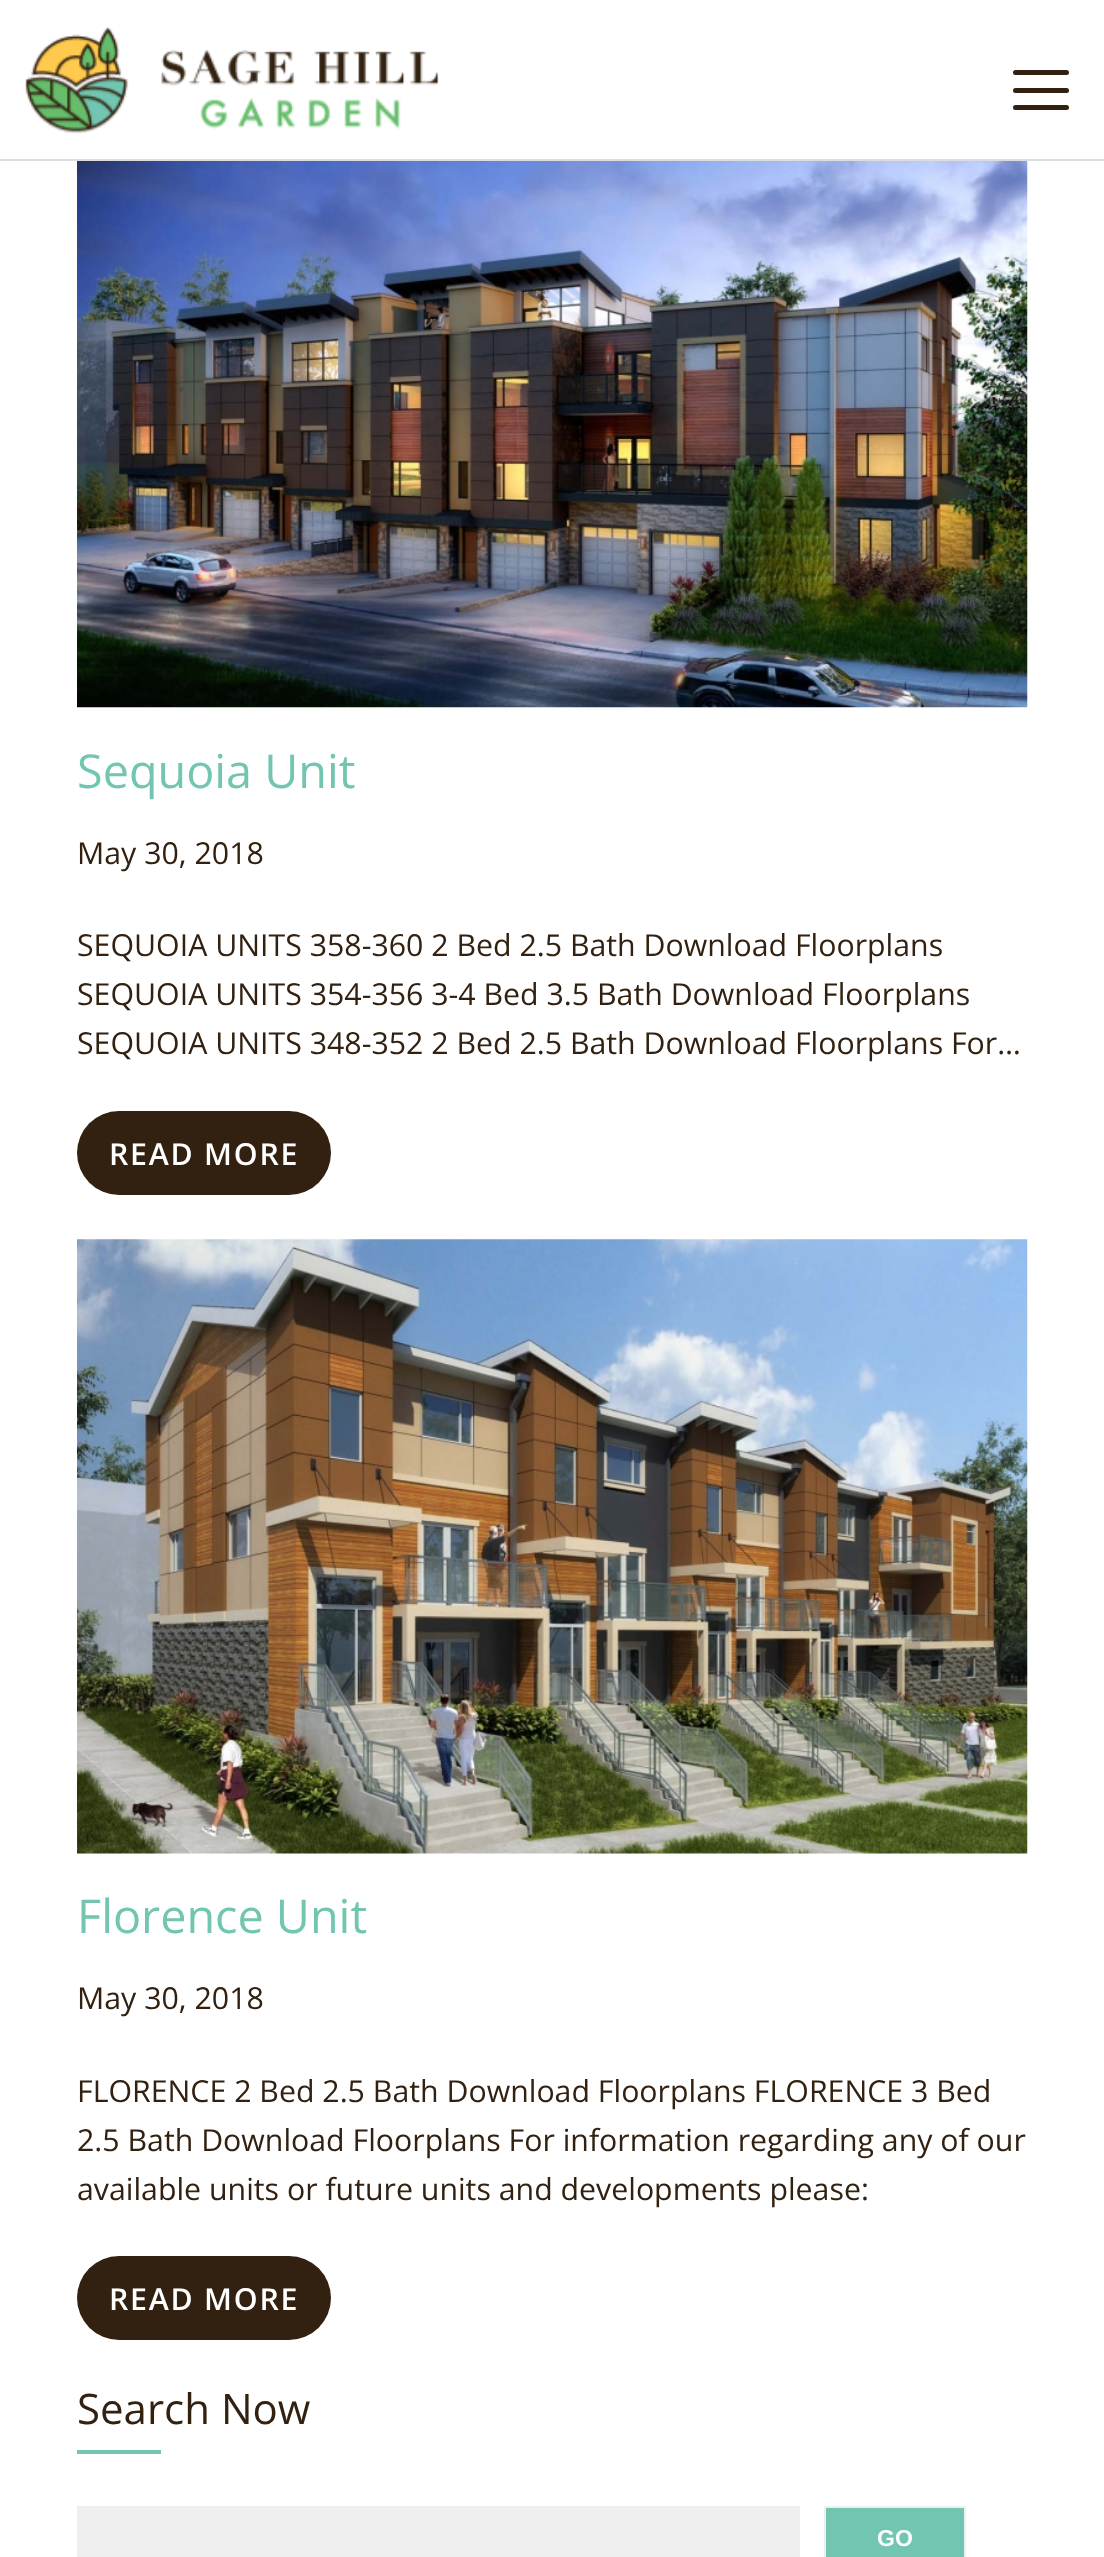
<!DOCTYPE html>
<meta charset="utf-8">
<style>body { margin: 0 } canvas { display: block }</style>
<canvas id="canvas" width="1104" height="2557"></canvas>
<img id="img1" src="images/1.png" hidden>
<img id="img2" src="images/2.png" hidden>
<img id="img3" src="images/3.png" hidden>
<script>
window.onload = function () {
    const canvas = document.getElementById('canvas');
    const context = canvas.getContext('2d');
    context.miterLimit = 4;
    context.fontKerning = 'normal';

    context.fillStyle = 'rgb(255, 255, 255)';
    context.fillRect(0, 0, 1104, 2557);
    context.fillStyle = 'rgb(221, 221, 221)';
    context.fillRect(0, 159, 1104, 2);
    context.drawImage(document.getElementById('img1'), 25, 27, 414, 106);
    context.fillStyle = 'rgb(50, 33, 16)';
    context.beginPath();
    context.roundRect(1013, 70, 28, 5, [2.5, 0, 0, 2.5]);
    context.fill();
    context.beginPath();
    context.roundRect(1041, 70, 28, 5, [0, 2.5, 2.5, 0]);
    context.fill();
    context.beginPath();
    context.roundRect(1013, 88, 28, 5, [2.5, 0, 0, 2.5]);
    context.fill();
    context.beginPath();
    context.roundRect(1041, 88, 28, 5, [0, 2.5, 2.5, 0]);
    context.fill();
    context.beginPath();
    context.roundRect(1013, 105, 28, 5, [2.5, 0, 0, 2.5]);
    context.fill();
    context.beginPath();
    context.roundRect(1041, 105, 28, 5, [0, 2.5, 2.5, 0]);
    context.fill();
    context.drawImage(document.getElementById('img2'), 77, 161, 951, 547);
    context.beginPath();
    context.roundRect(77, 1111, 254, 84, 42);
    context.fill();
    context.drawImage(document.getElementById('img3'), 77, 1239, 951, 615);
    context.beginPath();
    context.roundRect(77, 2256, 254, 84, 42);
    context.fill();
    context.fillStyle = 'rgb(114, 198, 177)';
    context.fillRect(77, 2450, 84, 4);
    context.fillStyle = 'rgb(239, 239, 239)';
    context.fillRect(77, 2506, 723, 51);
    context.fillStyle = 'rgb(114, 198, 177)';
    context.beginPath();
    context.rect(825, 2507, 140, 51);
    context.fill();
    context.strokeStyle = 'rgb(239, 239, 239)';
    context.lineWidth = 2;
    context.stroke();
    context.font = '46.75px Open Sans';
    context.fillText('Sequoia Unit', 77, 788);
    context.font = '30.3px Open Sans';
    context.fillStyle = 'rgb(50, 33, 16)';
    context.fillText('May 30, 2018', 77, 864);
    context.fillText('SEQUOIA UNITS 358-360 2 Bed 2.5 Bath Download Floorplans', 77, 956);
    context.fillText('SEQUOIA UNITS 354-356 3-4 Bed 3.5 Bath Download Floorplans', 77, 1005);
    context.fillText('SEQUOIA UNITS 348-352 2 Bed 2.5 Bath Download Floorplans For…', 77, 1054);
    context.letterSpacing = '1.75px';
    context.font = '600 30.3px Open Sans';
    context.fillStyle = 'rgb(255, 255, 255)';
    context.fillText('READ MORE', 109, 1165);
    context.letterSpacing = '0px';
    context.font = '46.75px Open Sans';
    context.fillStyle = 'rgb(114, 198, 177)';
    context.fillText('Florence Unit', 77, 1933);
    context.font = '30.3px Open Sans';
    context.fillStyle = 'rgb(50, 33, 16)';
    context.fillText('May 30, 2018', 77, 2009);
    context.fillText('FLORENCE 2 Bed 2.5 Bath Download Floorplans FLORENCE 3 Bed', 77, 2102);
    context.fillText('2.5 Bath Download Floorplans For information regarding any of our', 77, 2151);
    context.fillText('available units or future units and developments please:', 77, 2200);
    context.letterSpacing = '1.75px';
    context.font = '600 30.3px Open Sans';
    context.fillStyle = 'rgb(255, 255, 255)';
    context.fillText('READ MORE', 109, 2310);
    context.letterSpacing = '0px';
    context.font = '42px Open Sans';
    context.fillStyle = 'rgb(50, 33, 16)';
    context.fillText('Search Now', 77, 2424);
    context.font = 'bold 23px Liberation Sans';
    context.fillStyle = 'rgb(255, 255, 255)';
    context.fillText('GO', 877, 2546);
};
</script>
